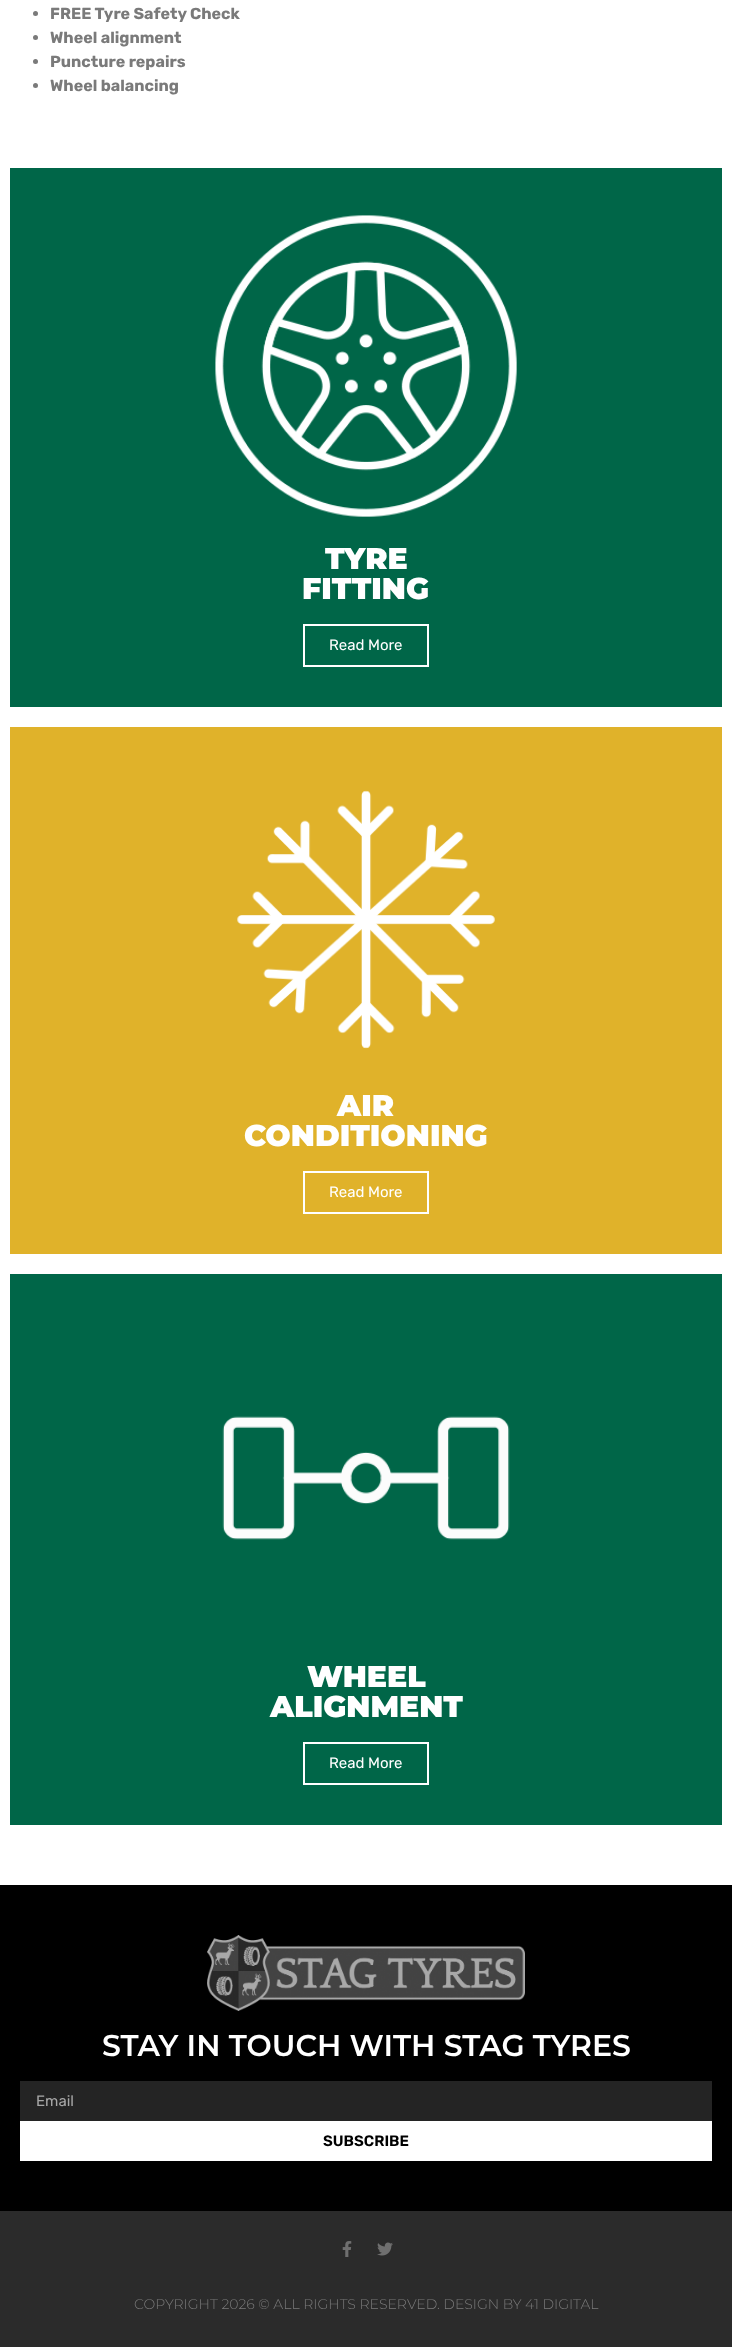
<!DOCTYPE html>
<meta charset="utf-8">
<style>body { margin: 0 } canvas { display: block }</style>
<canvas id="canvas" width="732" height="2347"></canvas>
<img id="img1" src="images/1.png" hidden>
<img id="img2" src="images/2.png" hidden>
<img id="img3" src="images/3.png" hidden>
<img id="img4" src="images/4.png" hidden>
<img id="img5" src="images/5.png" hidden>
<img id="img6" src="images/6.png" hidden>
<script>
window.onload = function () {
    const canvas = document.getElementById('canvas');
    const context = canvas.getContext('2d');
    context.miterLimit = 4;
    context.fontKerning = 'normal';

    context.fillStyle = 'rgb(255, 255, 255)';
    context.fillRect(0, 0, 732, 2347);
    context.fillStyle = 'rgb(122, 122, 122)';
    context.beginPath();
    context.arc(35.5, 13.5, 2.5, 0, 2 * Math.PI);
    context.fill();
    context.beginPath();
    context.arc(35.5, 37.5, 2.5, 0, 2 * Math.PI);
    context.fill();
    context.beginPath();
    context.arc(35.5, 61.5, 2.5, 0, 2 * Math.PI);
    context.fill();
    context.beginPath();
    context.arc(35.5, 85.5, 2.5, 0, 2 * Math.PI);
    context.fill();
    context.fillStyle = 'rgb(0, 102, 72)';
    context.fillRect(10, 168, 712, 539);
    context.drawImage(document.getElementById('img1'), 215, 215, 302, 302);
    context.strokeStyle = 'rgb(255, 255, 255)';
    context.lineWidth = 2;
    context.strokeRect(304, 625, 124, 41);
    context.fillStyle = 'rgb(224, 178, 42)';
    context.fillRect(10, 727, 712, 527);
    context.drawImage(document.getElementById('img2'), 237, 790, 258, 259);
    context.strokeRect(304, 1172, 124, 41);
    context.fillStyle = 'rgb(0, 102, 72)';
    context.fillRect(10, 1274, 712, 551);
    context.drawImage(document.getElementById('img3'), 222, 1416, 288, 124);
    context.strokeRect(304, 1743, 124, 41);
    context.fillStyle = 'rgb(0, 0, 0)';
    context.fillRect(0, 1885, 732, 326);
    context.drawImage(document.getElementById('img4'), 207, 1935, 318, 76);
    context.fillStyle = 'rgb(36, 36, 36)';
    context.fillRect(20, 2081, 692, 40);
    context.fillStyle = 'rgb(255, 255, 255)';
    context.fillRect(20, 2121, 692, 40);
    context.fillStyle = 'rgb(43, 43, 43)';
    context.fillRect(0, 2211, 732, 136);
    context.drawImage(document.getElementById('img5'), 342, 2241, 10, 16);
    context.drawImage(document.getElementById('img6'), 377, 2242, 16, 14);
    context.font = 'bold 16px Rubik';
    context.fillStyle = 'rgb(122, 122, 122)';
    context.fillText('FREE Tyre Safety Check', 50, 19);
    context.fillText('Wheel alignment', 50, 43);
    context.fillText('Puncture repairs', 50, 67);
    context.fillText('Wheel balancing', 50, 91);
    context.font = '900 30px Montserrat';
    context.fillStyle = 'rgb(255, 255, 255)';
    context.fillText('TYRE', 325, 569);
    context.fillText('FITTING', 302, 599);
    context.font = '15px Rubik';
    context.fillText('Read More', 329, 650);
    context.font = '900 30px Montserrat';
    context.fillText('AIR', 337, 1116);
    context.fillText('CONDITIONING', 244, 1146);
    context.font = '15px Rubik';
    context.fillText('Read More', 329, 1197);
    context.font = '900 30px Montserrat';
    context.fillText('WHEEL', 307, 1687);
    context.fillText('ALIGNMENT', 270, 1717);
    context.font = '15px Rubik';
    context.fillText('Read More', 329, 1768);
    context.font = '600 30px Montserrat';
    context.fillText('STAY IN TOUCH WITH STAG TYRES', 102, 2056);
    context.font = '15px Rubik';
    context.fillStyle = 'rgb(167, 167, 167)';
    context.fillText('Email', 36, 2106);
    context.font = '600 15px Rubik';
    context.fillStyle = 'rgb(0, 0, 0)';
    context.fillText('SUBSCRIBE', 323, 2146);
    context.font = '300 14px Montserrat';
    context.fillStyle = 'rgb(122, 122, 122)';
    context.fillText('COPYRIGHT 2026 © ALL RIGHTS RESERVED. DESIGN BY 41 DIGITAL', 134, 2309);
};
</script>
